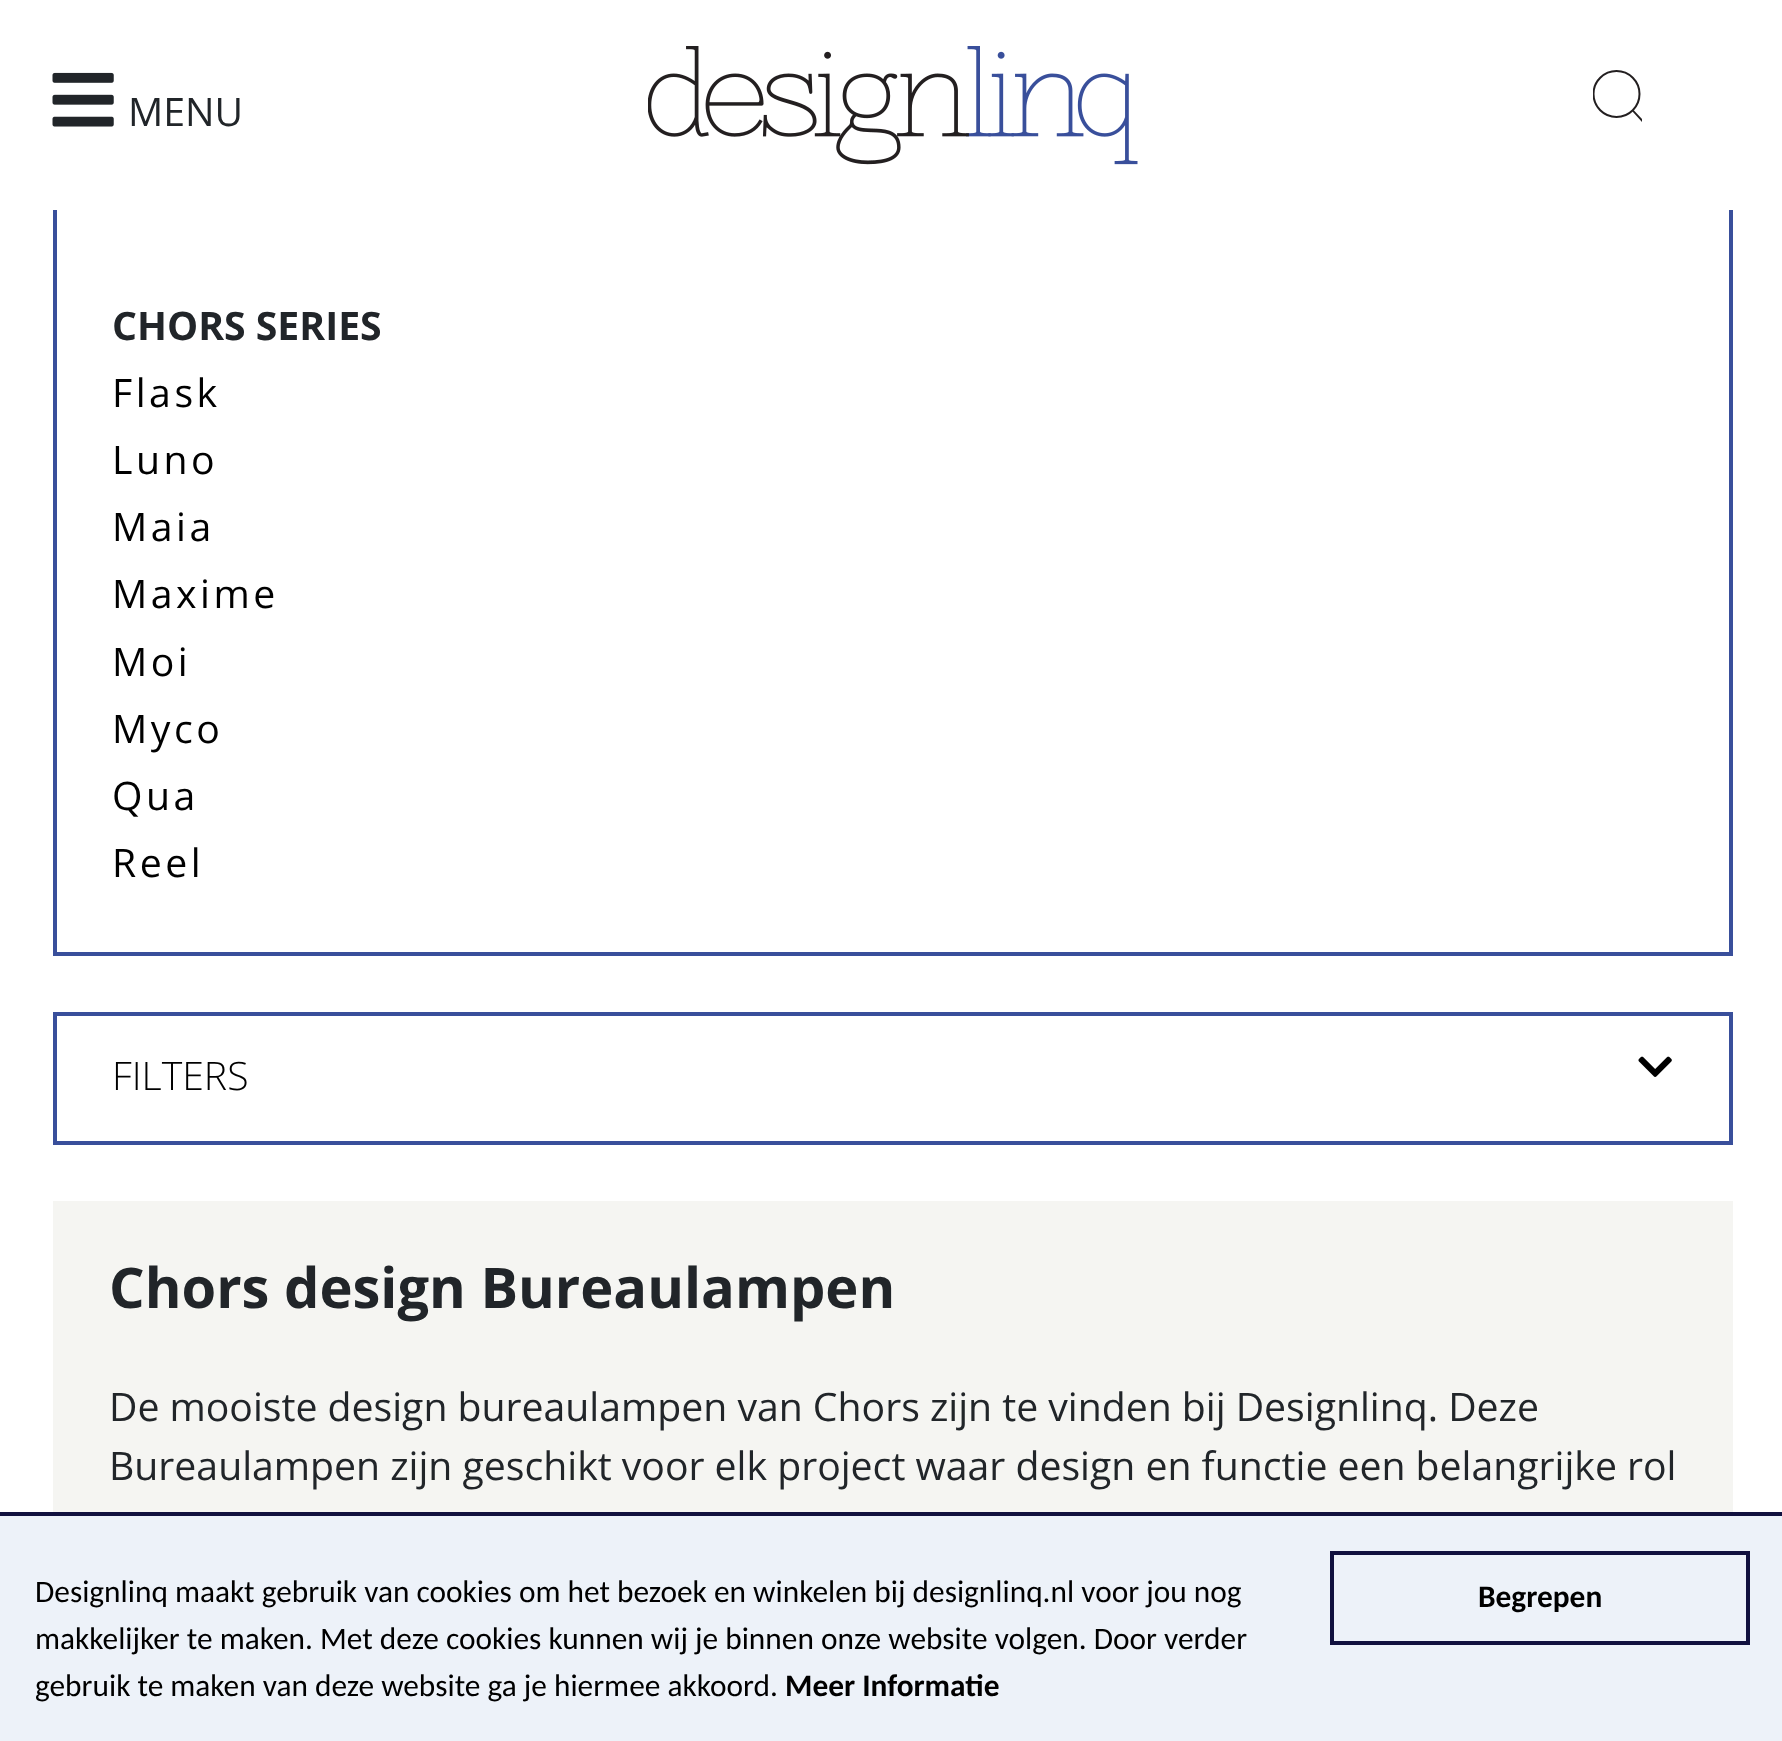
<!DOCTYPE html>
<meta charset="utf-8">
<style>body { margin: 0 } canvas { display: block }</style>
<canvas id="canvas" width="1782" height="1741"></canvas>
<img id="img1" src="images/1.png" hidden>
<img id="img2" src="images/2.png" hidden>
<img id="img3" src="images/3.png" hidden>
<script>
window.onload = function () {
    const canvas = document.getElementById('canvas');
    const context = canvas.getContext('2d');
    context.miterLimit = 4;
    context.fontKerning = 'normal';

    context.fillStyle = 'rgb(255, 255, 255)';
    context.fillRect(0, 0, 1782, 1741);
    context.strokeStyle = 'rgb(57, 79, 155)';
    context.lineWidth = 4;
    context.strokeRect(55, -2, 1676, 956);
    context.fillRect(53, 0, 1680, 210);
    context.drawImage(document.getElementById('img1'), 52, 72, 62, 55);
    context.drawImage(document.getElementById('img2'), 648, 46, 490, 119);
    context.save();
    context.beginPath();
    context.rect(1593, 70, 49, 53);
    context.clip();
    context.beginPath();
    context.arc(1616.5, 94, 23, 0, 2 * Math.PI);
    context.strokeStyle = 'rgb(35, 31, 32)';
    context.lineWidth = 2;
    context.stroke();
    context.fillStyle = 'rgb(35, 31, 32)';
    context.beginPath();
    context.moveTo(1632.5, 111);
    context.lineTo(1633, 110.5);
    context.bezierCurveTo(1633.5, 110, 1634, 110, 1634, 110.5);
    context.lineTo(1643.5, 120.5);
    context.bezierCurveTo(1644, 121, 1644, 121.5, 1643.5, 121.5);
    context.lineTo(1643, 122);
    context.bezierCurveTo(1643, 122.5, 1642.5, 122, 1642, 122);
    context.lineTo(1632.5, 111.5);
    context.bezierCurveTo(1632.5, 111.5, 1632.5, 111, 1632.5, 111);
    context.closePath();
    context.fill();
    context.restore();
    context.strokeRect(55, 1014, 1676, 129);
    context.drawImage(document.getElementById('img3'), 1638, 1056, 34, 21);
    context.fillStyle = 'rgb(245, 245, 242)';
    context.fillRect(53, 1201, 1680, 311);
    context.fillStyle = 'rgb(237, 242, 249)';
    context.fillRect(0, 1516, 1782, 225);
    context.fillStyle = 'rgb(17, 17, 63)';
    context.fillRect(0, 1512, 1782, 4);
    context.strokeStyle = 'rgb(17, 17, 63)';
    context.strokeRect(1332, 1553, 416, 90);
    context.font = '39.2px Open Sans';
    context.fillStyle = 'rgb(33, 37, 41)';
    context.fillText('MENU', 128, 126);
    context.font = 'bold 39.2px Open Sans';
    context.fillText('CHORS SERIES', 112, 340);
    context.letterSpacing = '3.5px';
    context.font = '39.2px Open Sans';
    context.fillStyle = 'rgb(0, 0, 0)';
    context.fillText('Flask', 112, 407);
    context.fillText('Luno', 112, 474);
    context.fillText('Maia', 112, 541);
    context.fillText('Maxime', 112, 608);
    context.fillText('Moi', 112, 676);
    context.fillText('Myco', 112, 743);
    context.fillText('Qua', 112, 810);
    context.fillText('Reel', 112, 877);
    context.letterSpacing = '0px';
    context.font = '300 39.2px Open Sans';
    context.fillText('FILTERS', 112, 1090);
    context.font = 'bold 56px Open Sans';
    context.fillStyle = 'rgb(33, 37, 41)';
    context.fillText('Chors design Bureaulampen', 109, 1308);
    context.wordSpacing = '-0.1px';
    context.font = '39.2px Open Sans';
    context.fillText('De mooiste design bureaulampen van Chors zijn te vinden bij Designlinq. Deze', 109, 1421);
    context.fillText('Bureaulampen zijn geschikt voor elk project waar design en functie een belangrijke rol', 109, 1480);
    context.wordSpacing = '0px';
    context.font = '31.35px Carlito';
    context.fillStyle = 'rgb(0, 0, 0)';
    context.fillText('Designlinq maakt gebruik van cookies om het bezoek en winkelen bij designlinq.nl voor jou nog', 35, 1602);
    context.fillText('makkelijker te maken. Met deze cookies kunnen wij je binnen onze website volgen. Door verder', 35, 1649);
    context.fillText('gebruik te maken van deze website ga je hiermee akkoord.', 35, 1696);
    context.font = 'bold 31.35px Carlito';
    context.fillText('Meer Informatie', 785, 1696);
    context.fillText('Begrepen', 1478, 1607);
};
</script>
